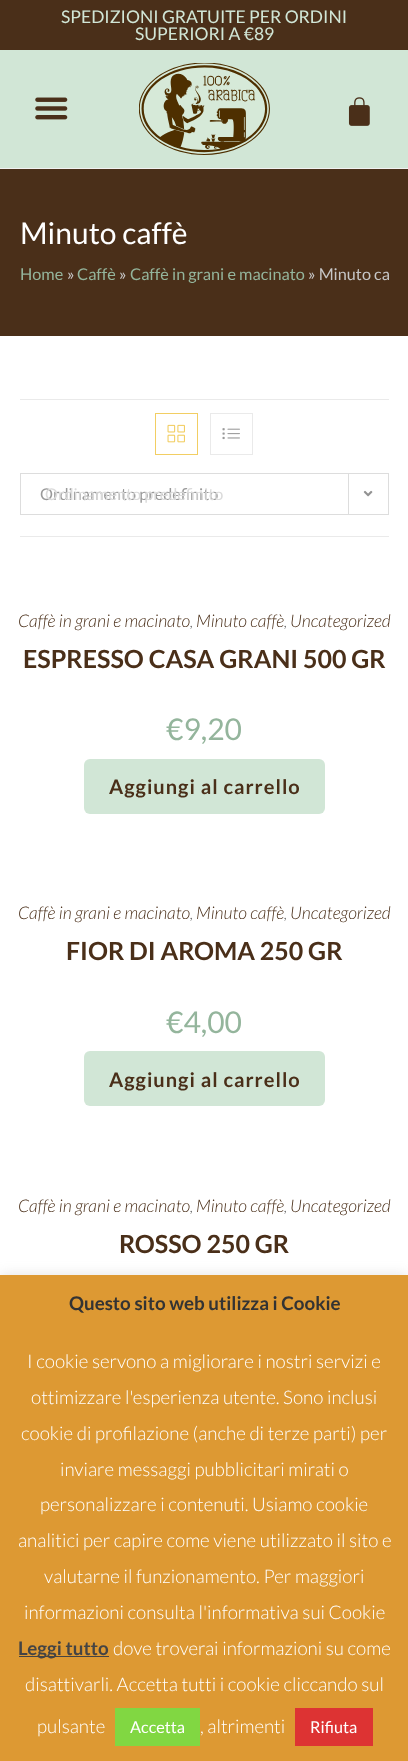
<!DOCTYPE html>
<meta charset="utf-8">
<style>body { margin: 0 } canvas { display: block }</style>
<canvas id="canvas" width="408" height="1761"></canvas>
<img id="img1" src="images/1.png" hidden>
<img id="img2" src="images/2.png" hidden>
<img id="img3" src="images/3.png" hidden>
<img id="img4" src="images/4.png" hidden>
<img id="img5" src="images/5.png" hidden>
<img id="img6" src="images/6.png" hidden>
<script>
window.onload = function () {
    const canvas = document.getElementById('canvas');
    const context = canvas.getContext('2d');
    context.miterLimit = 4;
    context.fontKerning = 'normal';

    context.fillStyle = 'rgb(255, 255, 255)';
    context.fillRect(0, 0, 408, 1761);
    context.fillStyle = 'rgb(241, 241, 241)';
    context.fillRect(0, 168, 408, 1);
    context.fillStyle = 'rgb(74, 47, 25)';
    context.fillRect(0, 0, 408, 50);
    context.fillStyle = 'rgb(209, 230, 214)';
    context.fillRect(0, 50, 408, 118);
    context.drawImage(document.getElementById('img1'), 35, 97, 33, 23);
    context.drawImage(document.getElementById('img2'), 139, 63, 131, 92);
    context.drawImage(document.getElementById('img3'), 348, 97, 22, 29);
    context.fillStyle = 'rgb(74, 47, 25)';
    context.fillRect(0, 169, 408, 167);
    context.fillStyle = 'rgb(234, 234, 234)';
    context.fillRect(20, 399, 369, 1);
    context.fillRect(20, 536, 369, 1);
    context.strokeStyle = 'rgb(242, 206, 99)';
    context.strokeRect(155.5, 413.5, 42, 41);
    context.drawImage(document.getElementById('img4'), 167, 424, 18, 19);
    context.strokeStyle = 'rgb(234, 234, 234)';
    context.strokeRect(210.5, 413.5, 42, 41);
    context.drawImage(document.getElementById('img5'), 222, 428, 18, 12);
    context.strokeStyle = 'rgb(221, 221, 221)';
    context.strokeRect(20.5, 473.5, 368, 41);
    context.fillStyle = 'rgb(221, 221, 221)';
    context.fillRect(348, 474, 1, 40);
    context.drawImage(document.getElementById('img6'), 363, 490, 10, 7);
    context.fillStyle = 'rgb(209, 230, 214)';
    context.beginPath();
    context.roundRect(84, 759, 241, 55, 6);
    context.fill();
    context.beginPath();
    context.roundRect(84, 1051, 241, 55, 6);
    context.fill();
    context.fillStyle = 'rgba(172, 171, 171, 0.3)';
    context.filter = 'blur(6px)';
    context.beginPath();
    context.rect(0, 1274, 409, 486);
    context.fill();
    context.filter = 'none';
    context.fillStyle = 'rgb(221, 153, 51)';
    context.fillRect(0, 1275, 408, 486);
    context.fillStyle = 'rgb(68, 68, 68)';
    context.fillRect(19, 1656, 90, 1);
    context.fillStyle = 'rgb(129, 215, 66)';
    context.fillRect(115, 1708, 85, 38);
    context.fillStyle = 'rgb(221, 51, 51)';
    context.fillRect(295, 1708, 78, 38);
    context.font = '17.5px Lato';
    context.fillStyle = 'rgb(209, 230, 214)';
    context.fillText('SPEDIZIONI GRATUITE PER ORDINI', 61, 23);
    context.fillText('SUPERIORI A €89', 135, 40);
    context.font = '30px Lato';
    context.fillStyle = 'rgb(255, 255, 255)';
    context.fillText('Minuto caffè', 20, 244);
    context.font = '16.25px Lato';
    context.fillStyle = 'rgb(148, 181, 156)';
    context.fillText('Home', 20, 280);
    context.fillStyle = 'rgb(198, 198, 198)';
    context.fillText('»', 67, 280);
    context.fillStyle = 'rgb(148, 181, 156)';
    context.fillText('Caffè', 77, 280);
    context.fillStyle = 'rgb(198, 198, 198)';
    context.fillText('»', 119, 280);
    context.fillStyle = 'rgb(148, 181, 156)';
    context.fillText('Caffè in grani e macinato', 130, 280);
    context.fillStyle = 'rgb(198, 198, 198)';
    context.fillText('» Minuto ca', 308, 280);
    context.fillStyle = 'rgb(153, 153, 153)';
    context.fillText('Ordinamento predefinito', 40, 500);
    context.fillStyle = 'rgb(219, 219, 219)';
    context.fillText('Ordinamento predefinito', 45, 500);
    context.font = 'italic 300 17.5px Lato';
    context.fillStyle = 'rgb(74, 47, 25)';
    context.fillText('Caffè in grani e macinato', 18, 627);
    context.font = 'italic 300 15px Lato';
    context.fillStyle = 'rgb(74, 74, 74)';
    context.fillText(',', 190, 627);
    context.font = 'italic 300 17.5px Lato';
    context.fillStyle = 'rgb(74, 47, 25)';
    context.fillText('Minuto caffè', 196, 627);
    context.font = 'italic 300 15px Lato';
    context.fillStyle = 'rgb(74, 74, 74)';
    context.fillText(',', 284, 627);
    context.font = 'italic 300 17.5px Lato';
    context.fillStyle = 'rgb(74, 47, 25)';
    context.fillText('Uncategorized', 290, 627);
    context.font = 'bold 25px Lato';
    context.fillText('ESPRESSO CASA GRANI 500 GR', 23, 668);
    context.font = '30px Lato';
    context.fillStyle = 'rgb(148, 181, 156)';
    context.fillText('€9,20', 166, 740);
    context.letterSpacing = '1px';
    context.font = 'bold 20px Lato';
    context.fillStyle = 'rgb(74, 47, 25)';
    context.fillText('Aggiungi al carrello', 109, 794);
    context.letterSpacing = '0px';
    context.font = 'italic 300 17.5px Lato';
    context.fillText('Caffè in grani e macinato', 18, 919);
    context.font = 'italic 300 15px Lato';
    context.fillStyle = 'rgb(74, 74, 74)';
    context.fillText(',', 190, 919);
    context.font = 'italic 300 17.5px Lato';
    context.fillStyle = 'rgb(74, 47, 25)';
    context.fillText('Minuto caffè', 196, 919);
    context.font = 'italic 300 15px Lato';
    context.fillStyle = 'rgb(74, 74, 74)';
    context.fillText(',', 284, 919);
    context.font = 'italic 300 17.5px Lato';
    context.fillStyle = 'rgb(74, 47, 25)';
    context.fillText('Uncategorized', 290, 919);
    context.font = 'bold 25px Lato';
    context.fillText('FIOR DI AROMA 250 GR', 66, 960);
    context.font = '30px Lato';
    context.fillStyle = 'rgb(148, 181, 156)';
    context.fillText('€4,00', 166, 1033);
    context.letterSpacing = '1px';
    context.font = 'bold 20px Lato';
    context.fillStyle = 'rgb(74, 47, 25)';
    context.fillText('Aggiungi al carrello', 109, 1087);
    context.letterSpacing = '0px';
    context.font = 'italic 300 17.5px Lato';
    context.fillText('Caffè in grani e macinato', 18, 1212);
    context.font = 'italic 300 15px Lato';
    context.fillStyle = 'rgb(74, 74, 74)';
    context.fillText(',', 190, 1212);
    context.font = 'italic 300 17.5px Lato';
    context.fillStyle = 'rgb(74, 47, 25)';
    context.fillText('Minuto caffè', 196, 1212);
    context.font = 'italic 300 15px Lato';
    context.fillStyle = 'rgb(74, 74, 74)';
    context.fillText(',', 284, 1212);
    context.font = 'italic 300 17.5px Lato';
    context.fillStyle = 'rgb(74, 47, 25)';
    context.fillText('Uncategorized', 290, 1212);
    context.font = 'bold 25px Lato';
    context.fillText('ROSSO 250 GR', 119, 1253);
    context.font = 'bold 18.75px Lato';
    context.fillStyle = 'rgb(51, 51, 51)';
    context.fillText('Questo sito web utilizza i Cookie', 69, 1310);
    context.font = '300 18.75px Lato';
    context.fillStyle = 'rgb(255, 255, 255)';
    context.fillText('I cookie servono a migliorare i nostri servizi e', 27, 1368);
    context.fillText('ottimizzare l\'esperienza utente. Sono inclusi', 31, 1404);
    context.fillText('cookie di profilazione (anche di terze parti) per', 21, 1440);
    context.fillText('inviare messaggi pubblicitari mirati o', 60, 1476);
    context.fillText('personalizzare i contenuti. Usiamo cookie', 40, 1511);
    context.fillText('analitici per capire come viene utilizzato il sito e', 18, 1547);
    context.fillText('valutarne il funzionamento. Per maggiori', 44, 1583);
    context.fillText('informazioni consulta l\'informativa sui Cookie', 24, 1619);
    context.font = 'bold 18.75px Lato';
    context.fillStyle = 'rgb(68, 68, 68)';
    context.fillText('Leggi tutto', 18, 1655);
    context.font = '300 18.75px Lato';
    context.fillStyle = 'rgb(255, 255, 255)';
    context.fillText('dove troverai informazioni su come', 113, 1655);
    context.fillText('disattivarli. Accetta tutti i cookie cliccando sul', 25, 1691);
    context.fillText('pulsante', 37, 1733);
    context.font = '16.25px Lato';
    context.fillText('Accetta', 130, 1733);
    context.font = '300 18.75px Lato';
    context.fillText(', altrimenti', 200, 1733);
    context.font = '16.25px Lato';
    context.fillText('Rifiuta', 310, 1733);
};
</script>
